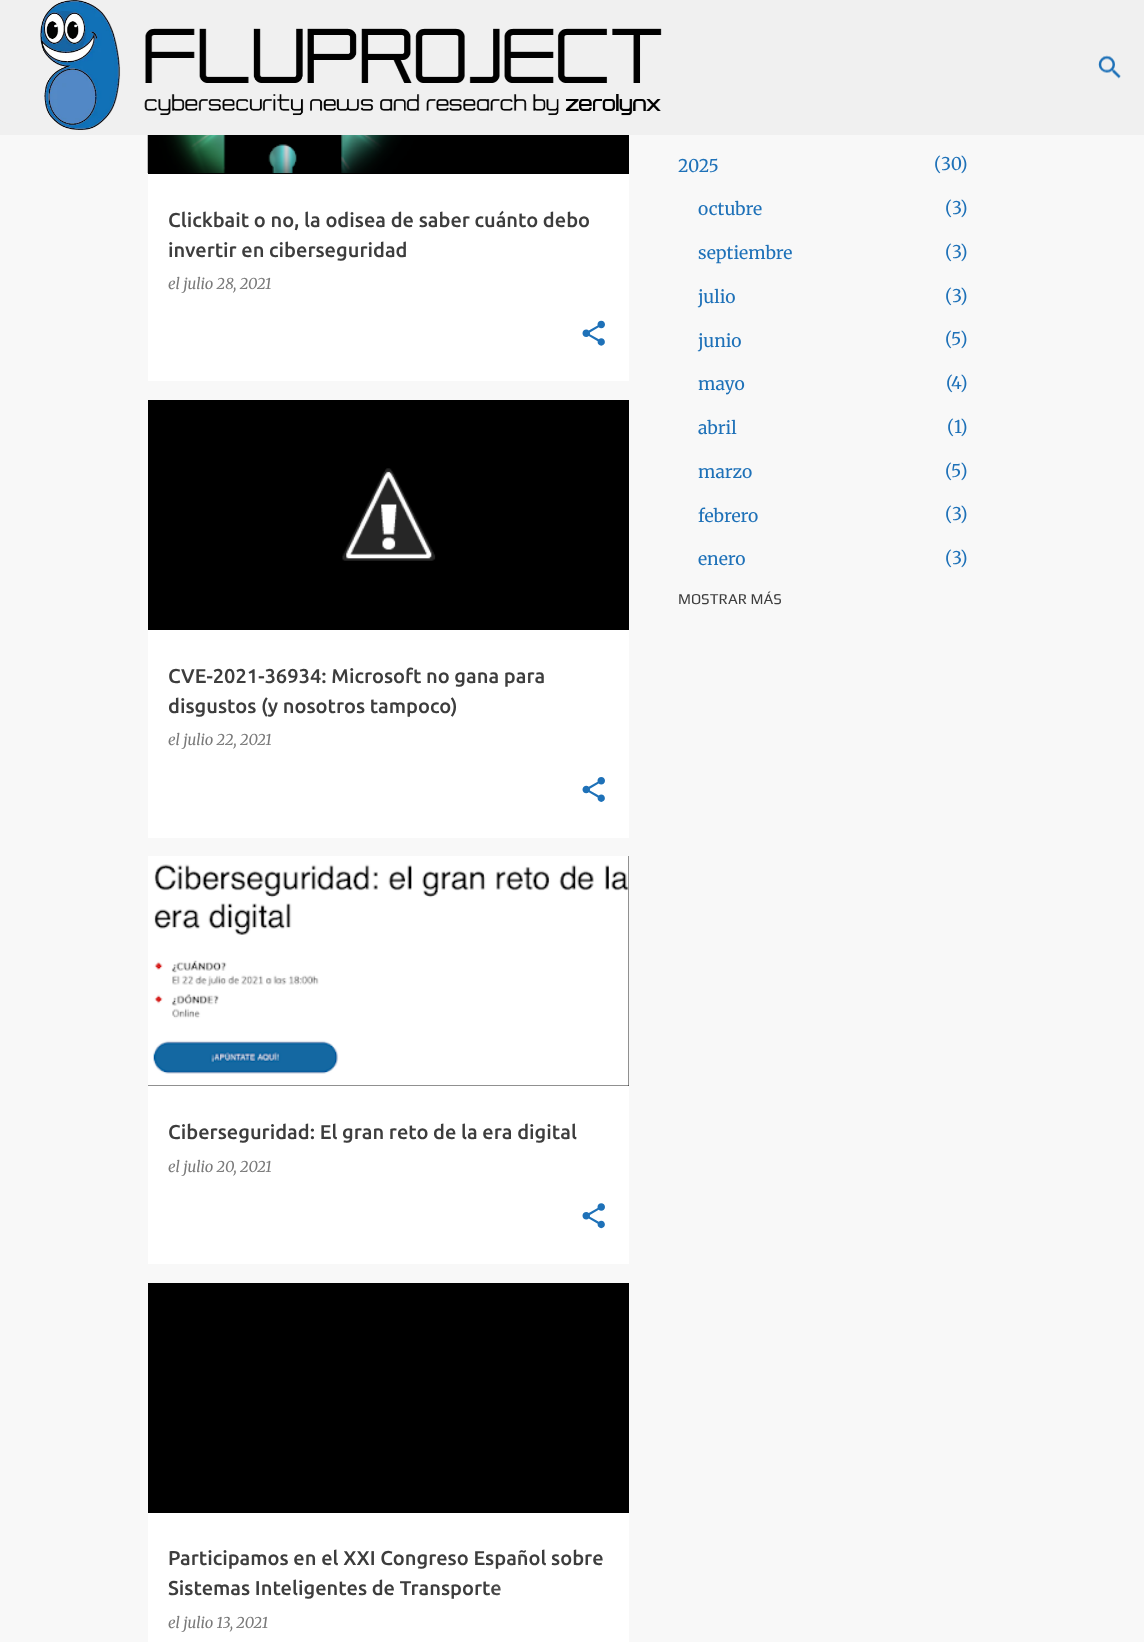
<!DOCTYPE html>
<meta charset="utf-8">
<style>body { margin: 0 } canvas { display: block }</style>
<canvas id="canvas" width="1144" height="1642"></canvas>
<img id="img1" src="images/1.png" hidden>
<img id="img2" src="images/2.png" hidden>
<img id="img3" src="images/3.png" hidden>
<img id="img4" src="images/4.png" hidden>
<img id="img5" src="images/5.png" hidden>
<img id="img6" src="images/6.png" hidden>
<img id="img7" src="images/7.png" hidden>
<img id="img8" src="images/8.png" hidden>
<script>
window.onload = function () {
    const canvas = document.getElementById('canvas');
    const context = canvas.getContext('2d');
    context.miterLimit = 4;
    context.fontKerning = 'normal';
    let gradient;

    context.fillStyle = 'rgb(248, 248, 248)';
    context.fillRect(0, 0, 1144, 1642);
    context.fillStyle = 'rgb(240, 240, 240)';
    context.fillRect(0, 0, 1144, 135);
    context.drawImage(document.getElementById('img1'), 40, 0, 622, 130);
    context.drawImage(document.getElementById('img2'), 1098, 55, 23, 24);
    context.fillStyle = 'rgb(255, 255, 255)';
    context.fillRect(148, 174, 481, 207);
    context.fillStyle = 'rgb(0, 0, 0)';
    context.fillRect(148, 135, 481, 39);
    context.drawImage(document.getElementById('img3'), 147, 135, 450, 39);
    context.drawImage(document.getElementById('img4'), 582, 320, 23, 26);
    context.fillStyle = 'rgb(255, 255, 255)';
    context.fillRect(148, 630, 481, 208);
    context.fillStyle = 'rgb(0, 0, 0)';
    context.fillRect(148, 400, 481, 230);
    context.drawImage(document.getElementById('img5'), 342, 468, 94, 93);
    context.drawImage(document.getElementById('img6'), 582, 777, 23, 25);
    context.fillStyle = 'rgb(255, 255, 255)';
    context.fillRect(148, 1086, 481, 178);
    context.fillStyle = 'rgb(0, 0, 0)';
    context.fillRect(148, 856, 481, 230);
    context.drawImage(document.getElementById('img7'), 148, 856, 481, 230);
    context.drawImage(document.getElementById('img8'), 582, 1203, 23, 26);
    context.fillStyle = 'rgb(255, 255, 255)';
    context.fillRect(148, 1513, 481, 129);
    context.fillStyle = 'rgb(0, 0, 0)';
    context.fillRect(148, 1283, 481, 230);
    context.font = '500 20px Ubuntu';
    context.fillStyle = 'rgb(61, 61, 61)';
    context.fillText('Clickbait o no, la odisea de saber cuánto debo', 168, 227);
    context.fillText('invertir en ciberseguridad', 168, 257);
    context.font = 'italic 15px Merriweather';
    context.fillStyle = 'rgb(122, 122, 122)';
    context.fillText('el julio 28, 2021', 168, 289);
    context.font = '500 20px Ubuntu';
    context.fillStyle = 'rgb(61, 61, 61)';
    context.fillText('CVE-2021-36934: Microsoft no gana para', 168, 683);
    context.fillText('disgustos (y nosotros tampoco)', 168, 713);
    context.font = 'italic 15px Merriweather';
    context.fillStyle = 'rgb(122, 122, 122)';
    context.fillText('el julio 22, 2021', 168, 745);
    context.font = '500 20px Ubuntu';
    context.fillStyle = 'rgb(61, 61, 61)';
    context.fillText('Ciberseguridad: El gran reto de la era digital', 168, 1139);
    context.font = 'italic 15px Merriweather';
    context.fillStyle = 'rgb(122, 122, 122)';
    context.fillText('el julio 20, 2021', 168, 1172);
    context.font = '500 20px Ubuntu';
    context.fillStyle = 'rgb(61, 61, 61)';
    context.fillText('Participamos en el XXI Congreso Español sobre', 168, 1565);
    context.fillText('Sistemas Inteligentes de Transporte', 168, 1595);
    gradient = context.createLinearGradient(609, 1588, 489, 1588);
    gradient.addColorStop(0, 'rgb(255, 255, 255)');
    gradient.addColorStop(0.2, 'rgb(255, 255, 255)');
    gradient.addColorStop(1, 'rgba(255, 255, 255, 0)');
    context.fillStyle = gradient;
    context.fillRect(491, 1584, 10, 12);
    context.font = 'italic 15px Merriweather';
    context.fillStyle = 'rgb(122, 122, 122)';
    context.fillText('el julio 13, 2021', 168, 1628);
    context.font = '17.5px Merriweather';
    context.fillStyle = 'rgb(30, 113, 184)';
    context.fillText('2025', 678, 172);
    context.fillText('(', 934, 170);
    context.fillText('30', 941, 170);
    context.fillText(')', 960, 170);
    context.fillText('octubre', 698, 215);
    context.fillText('(', 945, 214);
    context.fillText('3', 952, 214);
    context.fillText(')', 960, 214);
    context.fillText('septiembre', 698, 259);
    context.fillText('(', 945, 258);
    context.fillText('3', 952, 258);
    context.fillText(')', 960, 258);
    context.fillText('julio', 698, 303);
    context.fillText('(', 945, 302);
    context.fillText('3', 952, 302);
    context.fillText(')', 960, 302);
    context.fillText('junio', 698, 347);
    context.fillText('(', 945, 345);
    context.fillText('5', 951, 345);
    context.fillText(')', 960, 345);
    context.fillText('mayo', 698, 390);
    context.fillText('(', 946, 389);
    context.fillText('4', 951, 389);
    context.fillText(')', 960, 389);
    context.fillText('abril', 698, 434);
    context.fillText('(', 947, 433);
    context.fillText('1', 954, 433);
    context.fillText(')', 960, 433);
    context.fillText('marzo', 698, 478);
    context.fillText('(', 945, 477);
    context.fillText('5', 951, 477);
    context.fillText(')', 960, 477);
    context.fillText('febrero', 698, 522);
    context.fillText('(', 945, 520);
    context.fillText('3', 952, 520);
    context.fillText(')', 960, 520);
    context.fillText('enero', 698, 565);
    context.fillText('(', 945, 564);
    context.fillText('3', 952, 564);
    context.fillText(')', 960, 564);
    context.font = '15px Play';
    context.fillStyle = 'rgb(61, 61, 61)';
    context.fillText('MOSTRAR MÁS', 678, 604);
};
</script>
